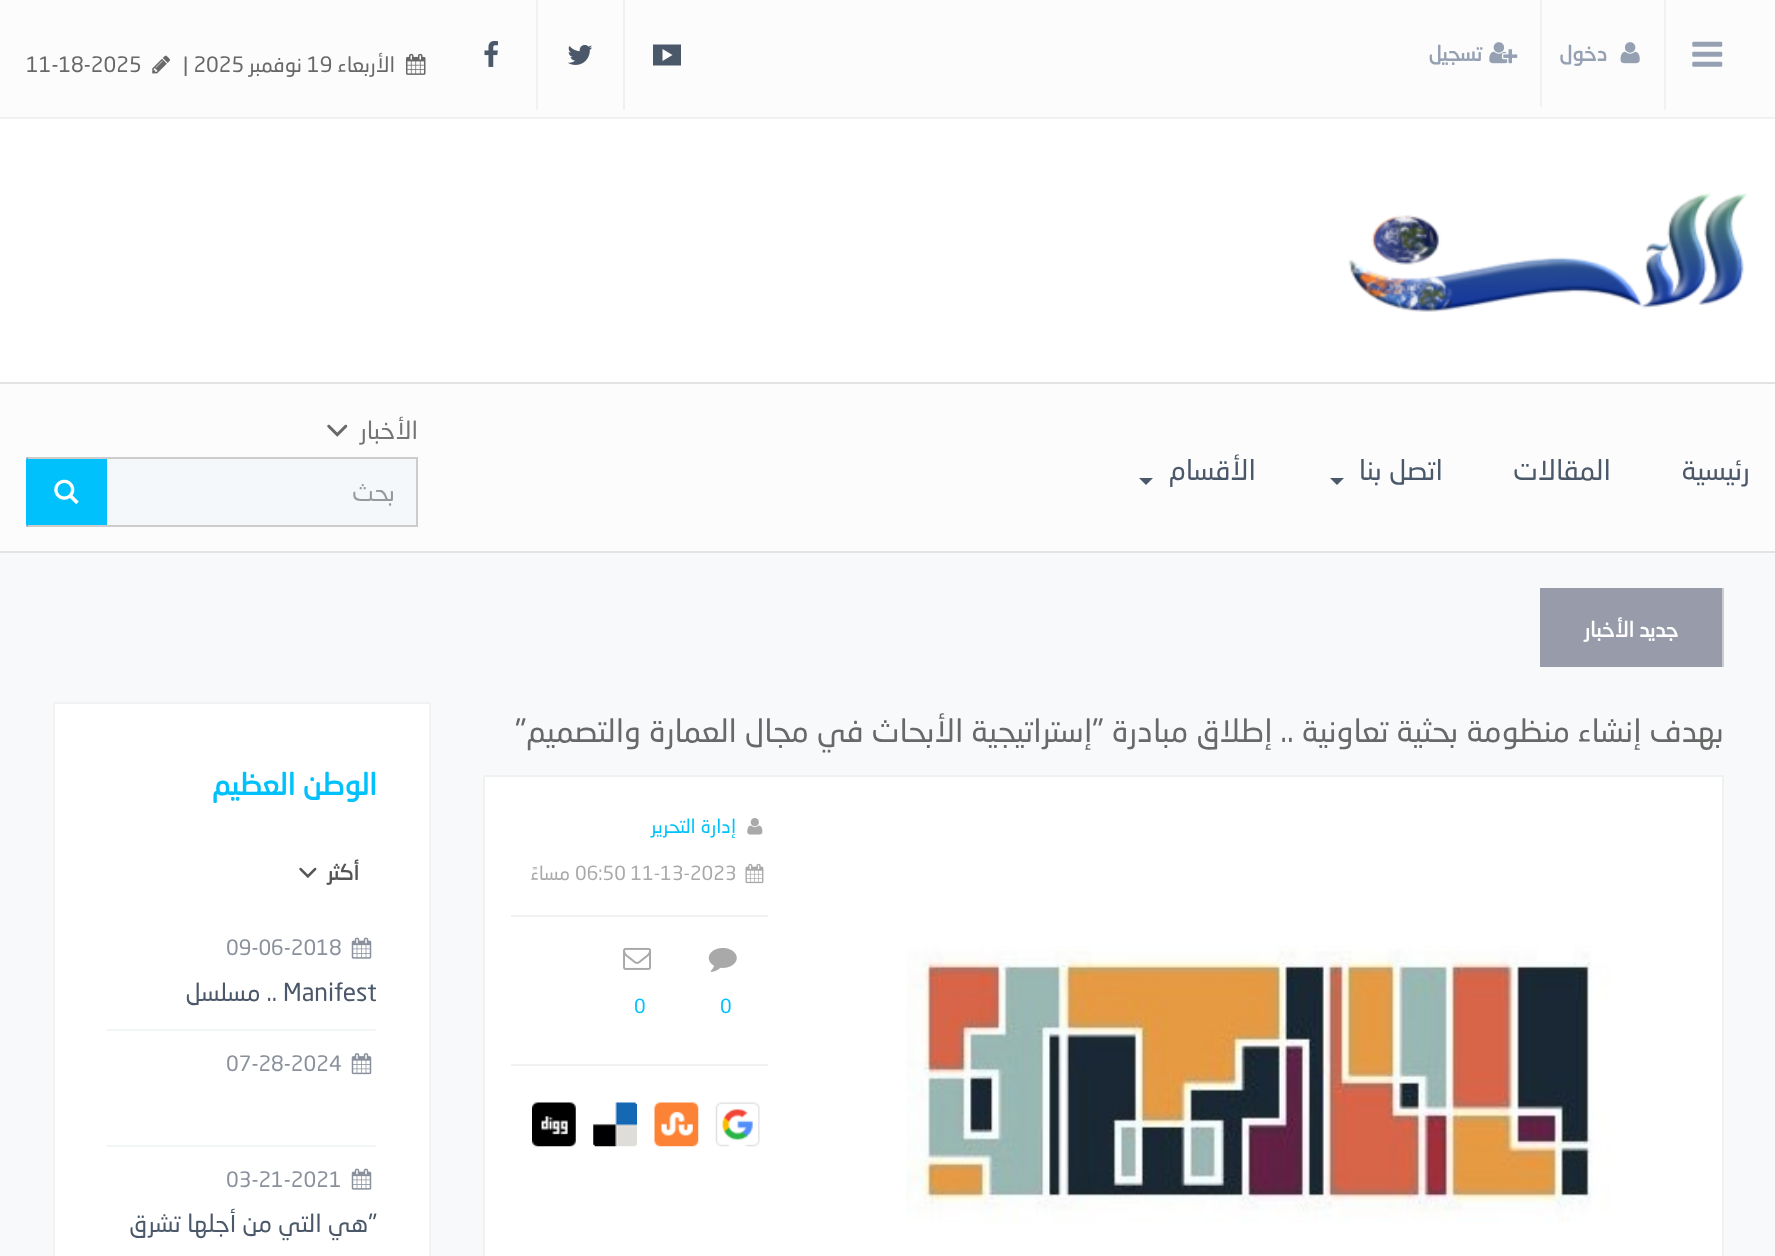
<!DOCTYPE html>
<meta charset="utf-8">
<style>body { margin: 0 } canvas { display: block }</style>
<canvas id="canvas" width="1775" height="1256"></canvas>
<img id="img1" src="images/1.png" hidden>
<img id="img2" src="images/2.png" hidden>
<img id="img3" src="images/3.png" hidden>
<img id="img4" src="images/4.png" hidden>
<img id="img5" src="images/5.png" hidden>
<img id="img6" src="images/6.png" hidden>
<img id="img7" src="images/7.png" hidden>
<img id="img8" src="images/8.png" hidden>
<img id="img9" src="images/9.png" hidden>
<img id="img10" src="images/10.png" hidden>
<img id="img11" src="images/11.png" hidden>
<img id="img12" src="images/12.png" hidden>
<img id="img13" src="images/13.png" hidden>
<img id="img14" src="images/14.png" hidden>
<img id="img15" src="images/15.png" hidden>
<img id="img16" src="images/16.png" hidden>
<img id="img17" src="images/17.png" hidden>
<img id="img18" src="images/18.png" hidden>
<img id="img19" src="images/19.png" hidden>
<img id="img20" src="images/20.png" hidden>
<img id="img21" src="images/21.png" hidden>
<img id="img22" src="images/22.png" hidden>
<script>
window.onload = function () {
    const canvas = document.getElementById('canvas');
    const context = canvas.getContext('2d');
    context.miterLimit = 4;
    context.fontKerning = 'normal';

    context.fillStyle = 'rgb(247, 249, 250)';
    context.fillRect(0, 0, 1775, 1256);
    context.fillStyle = 'rgb(255, 255, 255)';
    context.fillRect(0, 119, 1775, 263);
    context.fillStyle = 'rgb(252, 252, 252)';
    context.fillRect(0, 0, 1775, 117);
    context.fillStyle = 'rgb(240, 242, 242)';
    context.fillRect(0, 117, 1775, 2);
    context.fillRect(1664, 0, 2, 110);
    context.drawImage(document.getElementById('img1'), 1692, 41, 31, 26);
    context.fillRect(1540, 0, 2, 107);
    context.drawImage(document.getElementById('img2'), 1620, 42, 20, 22);
    context.drawImage(document.getElementById('img3'), 1489, 42, 29, 22);
    context.fillRect(623, 0, 2, 110);
    context.fillStyle = 'rgb(75, 88, 106)';
    context.beginPath();
    context.moveTo(653, 65.5);
    context.lineTo(653, 44.5);
    context.lineTo(681, 44.5);
    context.lineTo(681, 65.5);
    context.closePath();
    context.moveTo(662.5, 61);
    context.lineTo(672.5, 55);
    context.lineTo(662.5, 49);
    context.closePath();
    context.fill();
    context.fillStyle = 'rgb(240, 242, 242)';
    context.fillRect(536, 0, 2, 110);
    context.drawImage(document.getElementById('img4'), 567, 45, 26, 20);
    context.drawImage(document.getElementById('img5'), 484, 40, 14, 27);
    context.drawImage(document.getElementById('img6'), 406, 53, 20, 22);
    context.drawImage(document.getElementById('img7'), 152, 55, 18, 19);
    context.drawImage(document.getElementById('img8'), 1348, 192, 399, 120);
    context.fillStyle = 'rgb(252, 252, 252)';
    context.fillRect(0, 384, 1775, 167);
    context.fillStyle = 'rgb(227, 227, 227)';
    context.fillRect(0, 382, 1775, 2);
    context.fillRect(0, 551, 1775, 2);
    context.fillStyle = 'rgb(75, 88, 106)';
    context.beginPath();
    context.moveTo(1330, 478);
    context.lineTo(1344, 478);
    context.lineTo(1337, 485);
    context.closePath();
    context.fill();
    context.beginPath();
    context.moveTo(1139, 478);
    context.lineTo(1153, 478);
    context.lineTo(1146, 485);
    context.closePath();
    context.fill();
    context.drawImage(document.getElementById('img9'), 327, 424, 21, 13);
    context.fillStyle = 'rgb(245, 248, 250)';
    context.fillRect(107, 459, 309, 66);
    context.strokeStyle = 'rgb(204, 204, 204)';
    context.lineWidth = 2;
    context.strokeRect(27, 458, 390, 68);
    context.fillStyle = 'rgb(0, 193, 251)';
    context.beginPath();
    context.roundRect(26, 457, 81, 70, [4, 0, 0, 4]);
    context.fill();
    context.fillStyle = 'rgb(204, 204, 204)';
    context.fillRect(28, 457, 79, 2);
    context.fillRect(28, 525, 79, 2);
    context.drawImage(document.getElementById('img10'), 54, 479, 25, 26);
    context.fillRect(1722, 588, 2, 79);
    context.fillStyle = 'rgb(152, 155, 169)';
    context.fillRect(1540, 588, 182, 79);
    context.fillStyle = 'rgb(255, 255, 255)';
    context.beginPath();
    context.rect(484, 776, 1239, 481);
    context.fill();
    context.strokeStyle = 'rgb(240, 242, 242)';
    context.stroke();
    context.drawImage(document.getElementById('img11'), 747, 818, 16, 17);
    context.drawImage(document.getElementById('img12'), 745, 863, 19, 21);
    context.fillStyle = 'rgb(240, 242, 242)';
    context.fillRect(511, 915, 257, 2);
    context.drawImage(document.getElementById('img13'), 708, 948, 29, 24);
    context.drawImage(document.getElementById('img14'), 623, 947, 28, 23);
    context.fillRect(511, 1064, 257, 2);
    context.drawImage(document.getElementById('img15'), 715, 1102, 45, 45);
    context.drawImage(document.getElementById('img16'), 654, 1102, 45, 45);
    context.drawImage(document.getElementById('img17'), 593, 1102, 44, 45);
    context.drawImage(document.getElementById('img18'), 532, 1102, 44, 45);
    context.drawImage(document.getElementById('img19'), 906, 945, 704, 278);
    context.fillStyle = 'rgb(255, 255, 255)';
    context.beginPath();
    context.rect(54, 703, 376, 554);
    context.fill();
    context.strokeStyle = 'rgb(242, 242, 242)';
    context.stroke();
    context.drawImage(document.getElementById('img20'), 299, 867, 18, 12);
    context.drawImage(document.getElementById('img21'), 351, 937, 21, 22);
    context.fillStyle = 'rgb(242, 245, 245)';
    context.fillRect(107, 1029, 269, 2);
    context.drawImage(document.getElementById('img22'), 351, 1053, 21, 22);
    context.fillRect(107, 1145, 269, 2);
    context.drawImage(document.getElementById('img21'), 351, 1168, 21, 22);
    context.direction = 'rtl';
    context.font = 'bold 21px "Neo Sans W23"';
    context.fillStyle = 'rgb(149, 161, 179)';
    context.fillText('دخول', 1607, 61);
    context.fillText('تسجيل', 1482, 61);
    context.font = '21px "Neo Sans W23"';
    context.fillStyle = 'rgb(104, 104, 104)';
    context.fillText('الأربعاء', 395, 72);
    context.direction = 'ltr';
    context.fillText('19', 307, 72);
    context.direction = 'rtl';
    context.fillText('نوفمبر', 302, 72);
    context.direction = 'ltr';
    context.fillText('| 2025', 183, 72);
    context.fillText('11-18-2025', 26, 72);
    context.direction = 'rtl';
    context.font = '28px "Neo Sans W23"';
    context.fillStyle = 'rgb(75, 88, 106)';
    context.fillText('رئيسية', 1750, 480);
    context.fillText('المقالات', 1611, 480);
    context.fillText('اتصل بنا', 1443, 480);
    context.fillText('الأقسام', 1256, 480);
    context.font = '24.5px "Neo Sans W23"';
    context.fillStyle = 'rgb(117, 117, 117)';
    context.fillText('الأخبار', 418, 439);
    context.fillStyle = 'rgb(153, 153, 153)';
    context.fillText('بحث', 395, 501);
    context.font = 'bold 21px "Neo Sans W23"';
    context.fillStyle = 'rgb(255, 255, 255)';
    context.fillText('جديد الأخبار', 1678, 637);
    context.font = '31.5px "Neo Sans W23"';
    context.fillStyle = 'rgb(104, 104, 104)';
    context.fillText('بهدف إنشاء منظومة بحثية تعاونية .. إطلاق مبادرة "إستراتيجية الأبحاث في مجال العمارة والتصميم"', 1724, 742);
    context.font = '19.25px "Neo Sans W23"';
    context.fillStyle = 'rgb(0, 193, 251)';
    context.fillText('إدارة التحرير', 736, 833);
    context.direction = 'ltr';
    context.fillStyle = 'rgb(170, 169, 169)';
    context.fillText('06:50 11-13-2023', 575, 880);
    context.direction = 'rtl';
    context.fillText('مساءً', 570, 880);
    context.direction = 'ltr';
    context.fillStyle = 'rgb(0, 193, 251)';
    context.fillText('0', 720, 1013);
    context.fillText('0', 634, 1013);
    context.direction = 'rtl';
    context.font = 'bold 29.75px "Neo Sans W23"';
    context.fillText('الوطن العظيم', 377, 795);
    context.font = 'bold 21px "Neo Sans W23"';
    context.fillStyle = 'rgb(85, 85, 85)';
    context.fillText('أكثر', 359, 880);
    context.direction = 'ltr';
    context.font = '21px "Neo Sans W23"';
    context.fillStyle = 'rgb(138, 145, 156)';
    context.fillText('09-06-2018', 226, 955);
    context.font = '24.5px "Neo Sans W23"';
    context.fillStyle = 'rgb(75, 88, 106)';
    context.fillText('Manifest', 283, 1001);
    context.direction = 'rtl';
    context.fillText('.. مسلسل', 277, 1001);
    context.direction = 'ltr';
    context.font = '21px "Neo Sans W23"';
    context.fillStyle = 'rgb(138, 145, 156)';
    context.fillText('07-28-2024', 226, 1071);
    context.fillText('03-21-2021', 226, 1187);
    context.direction = 'rtl';
    context.font = '24.5px "Neo Sans W23"';
    context.fillStyle = 'rgb(75, 88, 106)';
    context.fillText('"هي التي من أجلها تشرق', 377, 1232);
};
</script>
